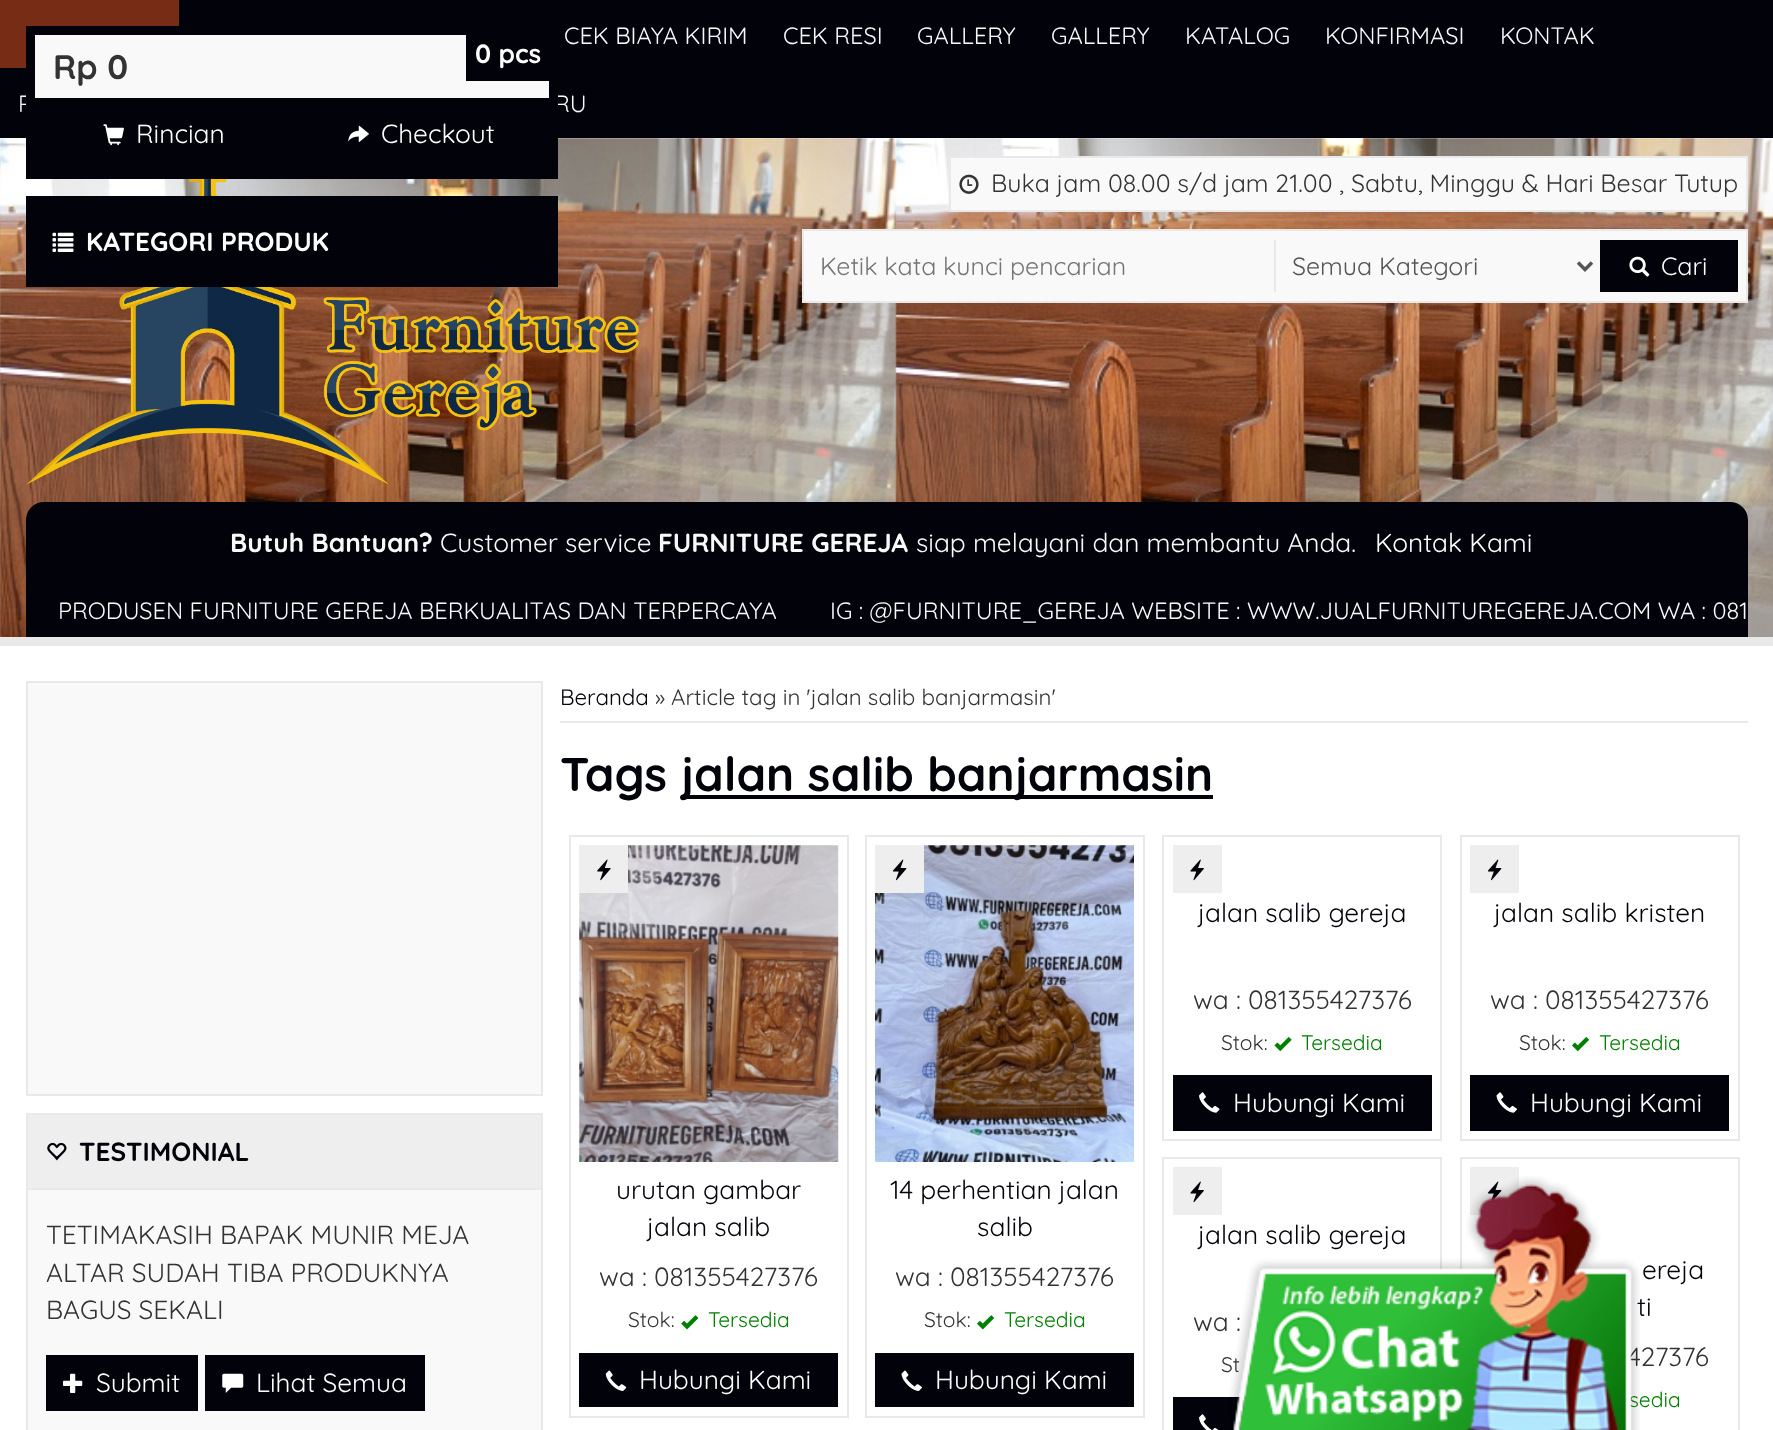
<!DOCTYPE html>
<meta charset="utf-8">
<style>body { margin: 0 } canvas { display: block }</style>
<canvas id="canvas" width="1773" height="1430"></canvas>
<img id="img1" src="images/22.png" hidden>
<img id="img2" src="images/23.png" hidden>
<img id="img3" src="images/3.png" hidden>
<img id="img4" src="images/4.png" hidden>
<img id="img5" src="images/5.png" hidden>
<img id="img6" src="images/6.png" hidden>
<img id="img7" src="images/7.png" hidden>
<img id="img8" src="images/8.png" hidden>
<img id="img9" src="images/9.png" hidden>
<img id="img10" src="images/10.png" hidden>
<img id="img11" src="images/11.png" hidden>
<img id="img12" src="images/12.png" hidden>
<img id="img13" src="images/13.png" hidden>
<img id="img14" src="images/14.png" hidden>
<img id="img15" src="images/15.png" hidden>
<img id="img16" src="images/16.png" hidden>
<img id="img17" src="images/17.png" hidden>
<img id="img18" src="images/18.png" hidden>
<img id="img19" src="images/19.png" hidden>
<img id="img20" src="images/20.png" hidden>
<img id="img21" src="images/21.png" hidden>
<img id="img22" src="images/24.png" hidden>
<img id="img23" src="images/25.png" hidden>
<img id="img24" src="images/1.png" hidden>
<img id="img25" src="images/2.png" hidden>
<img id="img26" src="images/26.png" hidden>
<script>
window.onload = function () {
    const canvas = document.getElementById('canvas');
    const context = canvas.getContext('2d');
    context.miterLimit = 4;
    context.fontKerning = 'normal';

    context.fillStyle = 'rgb(255, 255, 255)';
    context.fillRect(0, 0, 1773, 1430);
    context.fillStyle = 'rgb(1, 2, 10)';
    context.fillRect(0, 0, 1773, 138);
    context.fillStyle = 'rgb(119, 44, 21)';
    context.fillRect(0, 0, 179, 68);
    context.fillStyle = 'rgb(233, 233, 233)';
    context.fillRect(0, 637, 1773, 9);
    context.fillStyle = 'rgb(249, 249, 249)';
    context.fillRect(35, 35, 514, 63);
    context.drawImage(document.getElementById('img1'), 0, 138, 1773, 499);
    context.drawImage(document.getElementById('img2'), 26, 179, 613, 306);
    context.strokeStyle = 'rgb(1, 2, 10)';
    context.lineWidth = 9;
    context.strokeRect(30.5, 200.5, 523, 82);
    context.fillStyle = 'rgb(1, 2, 10)';
    context.fillRect(35, 205, 514, 73);
    context.drawImage(document.getElementById('img3'), 52, 232, 22, 20);
    context.fillStyle = 'rgb(249, 249, 249)';
    context.beginPath();
    context.rect(27, 682, 515, 413);
    context.fill();
    context.strokeStyle = 'rgb(233, 233, 233)';
    context.lineWidth = 2;
    context.stroke();
    context.fillRect(28, 1190, 513, 240);
    context.strokeRect(27, 1114, 515, 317);
    context.fillStyle = 'rgb(238, 238, 238)';
    context.fillRect(28, 1115, 513, 73);
    context.fillStyle = 'rgb(233, 233, 233)';
    context.fillRect(28, 1188, 513, 2);
    context.drawImage(document.getElementById('img4'), 47, 1142, 20, 19);
    context.fillStyle = 'rgb(1, 2, 10)';
    context.fillRect(46, 1355, 152, 56);
    context.drawImage(document.getElementById('img5'), 63, 1373, 20, 20);
    context.fillRect(205, 1355, 220, 56);
    context.drawImage(document.getElementById('img6'), 222, 1373, 22, 20);
    context.fillStyle = 'rgb(233, 233, 233)';
    context.fillRect(560, 721, 1188, 2);
    context.fillStyle = 'rgb(1, 2, 10)';
    context.fillRect(681, 795, 532, 4);
    context.strokeRect(1163, 836, 278, 304);
    context.fillStyle = 'rgb(238, 238, 238)';
    context.fillRect(1173, 845, 49, 48);
    context.drawImage(document.getElementById('img7'), 1190, 859, 14, 22);
    context.drawImage(document.getElementById('img8'), 1274, 1037, 18, 15);
    context.fillStyle = 'rgb(1, 2, 10)';
    context.fillRect(1173, 1075, 259, 56);
    context.drawImage(document.getElementById('img9'), 1199, 1092, 21, 21);
    context.strokeRect(1461, 836, 278, 304);
    context.fillStyle = 'rgb(238, 238, 238)';
    context.fillRect(1470, 845, 49, 48);
    context.drawImage(document.getElementById('img10'), 1487, 859, 15, 22);
    context.drawImage(document.getElementById('img11'), 1572, 1037, 17, 15);
    context.fillStyle = 'rgb(1, 2, 10)';
    context.fillRect(1470, 1075, 259, 56);
    context.drawImage(document.getElementById('img12'), 1496, 1092, 21, 21);
    context.strokeRect(570, 836, 278, 581);
    context.drawImage(document.getElementById('img13'), 579, 845, 260, 317);
    context.fillStyle = 'rgb(238, 238, 238)';
    context.fillRect(579, 845, 49, 48);
    context.drawImage(document.getElementById('img14'), 597, 859, 14, 22);
    context.drawImage(document.getElementById('img15'), 681, 1315, 18, 15);
    context.fillStyle = 'rgb(1, 2, 10)';
    context.fillRect(579, 1353, 259, 54);
    context.drawImage(document.getElementById('img16'), 605, 1370, 22, 21);
    context.strokeRect(866, 836, 278, 581);
    context.drawImage(document.getElementById('img17'), 875, 845, 259, 317);
    context.fillStyle = 'rgb(238, 238, 238)';
    context.fillRect(875, 845, 49, 48);
    context.drawImage(document.getElementById('img10'), 892, 859, 15, 22);
    context.drawImage(document.getElementById('img18'), 977, 1315, 17, 15);
    context.fillStyle = 'rgb(1, 2, 10)';
    context.fillRect(875, 1353, 259, 54);
    context.drawImage(document.getElementById('img19'), 901, 1370, 21, 21);
    context.strokeRect(1163, 1158, 278, 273);
    context.fillStyle = 'rgb(238, 238, 238)';
    context.fillRect(1173, 1167, 49, 48);
    context.drawImage(document.getElementById('img7'), 1190, 1181, 14, 22);
    context.fillStyle = 'rgb(1, 2, 10)';
    context.fillRect(1173, 1397, 74, 33);
    context.drawImage(document.getElementById('img20'), 1199, 1414, 20, 16);
    context.strokeRect(1461, 1158, 278, 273);
    context.fillStyle = 'rgb(238, 238, 238)';
    context.fillRect(1470, 1167, 49, 48);
    context.drawImage(document.getElementById('img21'), 1487, 1181, 15, 20);
    context.fillStyle = 'rgb(249, 249, 249)';
    context.beginPath();
    context.rect(950, 157, 797, 54);
    context.fill();
    context.stroke();
    context.drawImage(document.getElementById('img22'), 959, 174, 20, 20);
    context.beginPath();
    context.rect(803, 230, 944, 72);
    context.fill();
    context.stroke();
    context.fillStyle = 'rgb(233, 233, 233)';
    context.fillRect(1274, 240, 2, 52);
    context.beginPath();
    context.moveTo(1578, 262.5);
    context.lineTo(1585, 269.5);
    context.lineTo(1592, 262.5);
    context.strokeStyle = 'rgb(85, 85, 85)';
    context.lineWidth = 3.5;
    context.stroke();
    context.fillStyle = 'rgb(1, 2, 10)';
    context.fillRect(1600, 240, 138, 52);
    context.drawImage(document.getElementById('img23'), 1629, 256, 21, 21);
    context.beginPath();
    context.roundRect(26, 502, 1722, 135, [18, 18, 0, 0]);
    context.fill();
    context.font = '23.6px Quicksand';
    context.fillStyle = 'rgb(249, 249, 249)';
    context.fillText('CEK BIAYA KIRIM', 564, 44);
    context.fillText('CEK RESI', 783, 44);
    context.fillText('GALLERY', 917, 44);
    context.fillText('GALLERY', 1051, 44);
    context.fillText('KATALOG', 1185, 44);
    context.fillText('KONFIRMASI', 1325, 44);
    context.fillText('KONTAK', 1500, 44);
    context.fillText('P', 18, 112);
    context.fillText('RU', 554, 112);
    context.strokeStyle = 'rgb(1, 2, 10)';
    context.lineWidth = 9;
    context.strokeRect(30.5, 30.5, 523, 144);
    context.font = 'bold 34px Quicksand';
    context.fillStyle = 'rgb(51, 51, 51)';
    context.fillText('Rp 0', 53, 79);
    context.fillStyle = 'rgb(1, 2, 10)';
    context.fillRect(466, 35, 83, 46);
    context.font = 'bold 26.25px Quicksand';
    context.fillStyle = 'rgb(255, 255, 255)';
    context.fillText('0 pcs', 475, 63);
    context.fillStyle = 'rgb(1, 2, 10)';
    context.fillRect(35, 138, 514, 32);
    context.drawImage(document.getElementById('img24'), 103, 124, 21, 22);
    context.font = '26.25px Quicksand';
    context.fillStyle = 'rgb(255, 255, 255)';
    context.fillText('Rincian', 136, 143);
    context.drawImage(document.getElementById('img25'), 348, 125, 21, 17);
    context.fillText('Checkout', 381, 143);
    context.font = 'bold 26.25px Quicksand';
    context.fillText('KATEGORI PRODUK', 86, 251);
    context.fillStyle = 'rgb(1, 2, 10)';
    context.fillText('TESTIMONIAL', 79, 1161);
    context.font = '26.25px Quicksand';
    context.fillStyle = 'rgb(51, 51, 51)';
    context.fillText('TETIMAKASIH BAPAK MUNIR MEJA', 46, 1244);
    context.fillText('ALTAR SUDAH TIBA PRODUKNYA', 46, 1282);
    context.fillText('BAGUS SEKALI', 46, 1319);
    context.fillStyle = 'rgb(255, 255, 255)';
    context.fillText('Submit', 96, 1392);
    context.fillText('Lihat Semua', 256, 1392);
    context.font = '22.3px Quicksand';
    context.fillStyle = 'rgb(1, 2, 10)';
    context.fillText('Beranda', 560, 705);
    context.fillStyle = 'rgb(51, 51, 51)';
    context.fillText('» Article tag in \'jalan salib banjarmasin\'', 655, 705);
    context.font = 'bold 47.25px Quicksand';
    context.fillStyle = 'rgb(1, 2, 10)';
    context.fillText('Tags', 560, 791);
    context.fillText('jalan salib banjarmasin', 681, 791);
    context.font = '26.25px Quicksand';
    context.fillText('jalan salib gereja', 1198, 922);
    context.fillStyle = 'rgb(51, 51, 51)';
    context.fillText('wa : 081355427376', 1193, 1009);
    context.font = '21px Quicksand';
    context.fillText('Stok:', 1221, 1050);
    context.fillStyle = 'rgb(0, 128, 0)';
    context.fillText('Tersedia', 1301, 1050);
    context.font = '26.25px Quicksand';
    context.fillStyle = 'rgb(255, 255, 255)';
    context.fillText('Hubungi Kami', 1233, 1112);
    context.fillStyle = 'rgb(1, 2, 10)';
    context.fillText('jalan salib kristen', 1494, 922);
    context.fillStyle = 'rgb(51, 51, 51)';
    context.fillText('wa : 081355427376', 1490, 1009);
    context.font = '21px Quicksand';
    context.fillText('Stok:', 1519, 1050);
    context.fillStyle = 'rgb(0, 128, 0)';
    context.fillText('Tersedia', 1599, 1050);
    context.font = '26.25px Quicksand';
    context.fillStyle = 'rgb(255, 255, 255)';
    context.fillText('Hubungi Kami', 1530, 1112);
    context.fillStyle = 'rgb(1, 2, 10)';
    context.fillText('urutan gambar', 616, 1199);
    context.fillText('jalan salib', 647, 1236);
    context.fillStyle = 'rgb(51, 51, 51)';
    context.fillText('wa : 081355427376', 599, 1286);
    context.font = '21px Quicksand';
    context.fillText('Stok:', 628, 1327);
    context.fillStyle = 'rgb(0, 128, 0)';
    context.fillText('Tersedia', 708, 1327);
    context.font = '26.25px Quicksand';
    context.fillStyle = 'rgb(255, 255, 255)';
    context.fillText('Hubungi Kami', 639, 1389);
    context.fillStyle = 'rgb(1, 2, 10)';
    context.fillText('14 perhentian jalan', 890, 1199);
    context.fillText('salib', 977, 1236);
    context.fillStyle = 'rgb(51, 51, 51)';
    context.fillText('wa : 081355427376', 895, 1286);
    context.font = '21px Quicksand';
    context.fillText('Stok:', 924, 1327);
    context.fillStyle = 'rgb(0, 128, 0)';
    context.fillText('Tersedia', 1004, 1327);
    context.font = '26.25px Quicksand';
    context.fillStyle = 'rgb(255, 255, 255)';
    context.fillText('Hubungi Kami', 935, 1389);
    context.fillStyle = 'rgb(1, 2, 10)';
    context.fillText('jalan salib gereja', 1198, 1244);
    context.fillStyle = 'rgb(51, 51, 51)';
    context.fillText('wa :', 1193, 1331);
    context.font = '21px Quicksand';
    context.fillText('St', 1221, 1372);
    context.font = '26.25px Quicksand';
    context.fillStyle = 'rgb(1, 2, 10)';
    context.fillText('ereja', 1642, 1279);
    context.fillText('ti', 1637, 1316);
    context.fillStyle = 'rgb(51, 51, 51)';
    context.fillText('427376', 1627, 1366);
    context.font = '21px Quicksand';
    context.fillStyle = 'rgb(0, 128, 0)';
    context.fillText('sedia', 1629, 1407);
    context.font = '24.95px Quicksand';
    context.fillStyle = 'rgb(51, 51, 51)';
    context.fillText('Buka jam 08.00 s/d jam 21.00 , Sabtu, Minggu & Hari Besar Tutup', 991, 192);
    context.fillStyle = 'rgb(117, 117, 117)';
    context.fillText('Ketik kata kunci pencarian', 820, 275);
    context.fillStyle = 'rgb(85, 85, 85)';
    context.fillText('Semua Kategori', 1292, 275);
    context.fillStyle = 'rgb(255, 255, 255)';
    context.fillText('Cari', 1661, 275);
    context.font = 'bold 26.25px Quicksand';
    context.fillStyle = 'rgb(249, 249, 249)';
    context.fillText('Butuh Bantuan?', 230, 552);
    context.font = '26.25px Quicksand';
    context.fillText('Customer service', 440, 552);
    context.font = 'bold 26.25px Quicksand';
    context.fillText('FURNITURE GEREJA', 658, 552);
    context.font = '26.25px Quicksand';
    context.fillText('siap melayani dan membantu Anda.', 916, 552);
    context.fillStyle = 'rgb(255, 255, 255)';
    context.fillText('Kontak Kami', 1375, 552);
    context.font = '23.6px Quicksand';
    context.fillStyle = 'rgb(249, 249, 249)';
    context.fillText('PRODUSEN FURNITURE GEREJA BERKUALITAS DAN TERPERCAYA', 58, 619);
    context.fillText('IG : @FURNITURE_GEREJA WEBSITE : WWW.JUALFURNITUREGEREJA.COM WA : 081', 830, 619);
    context.drawImage(document.getElementById('img26'), 1229, 1176, 411, 254);
};
</script>
